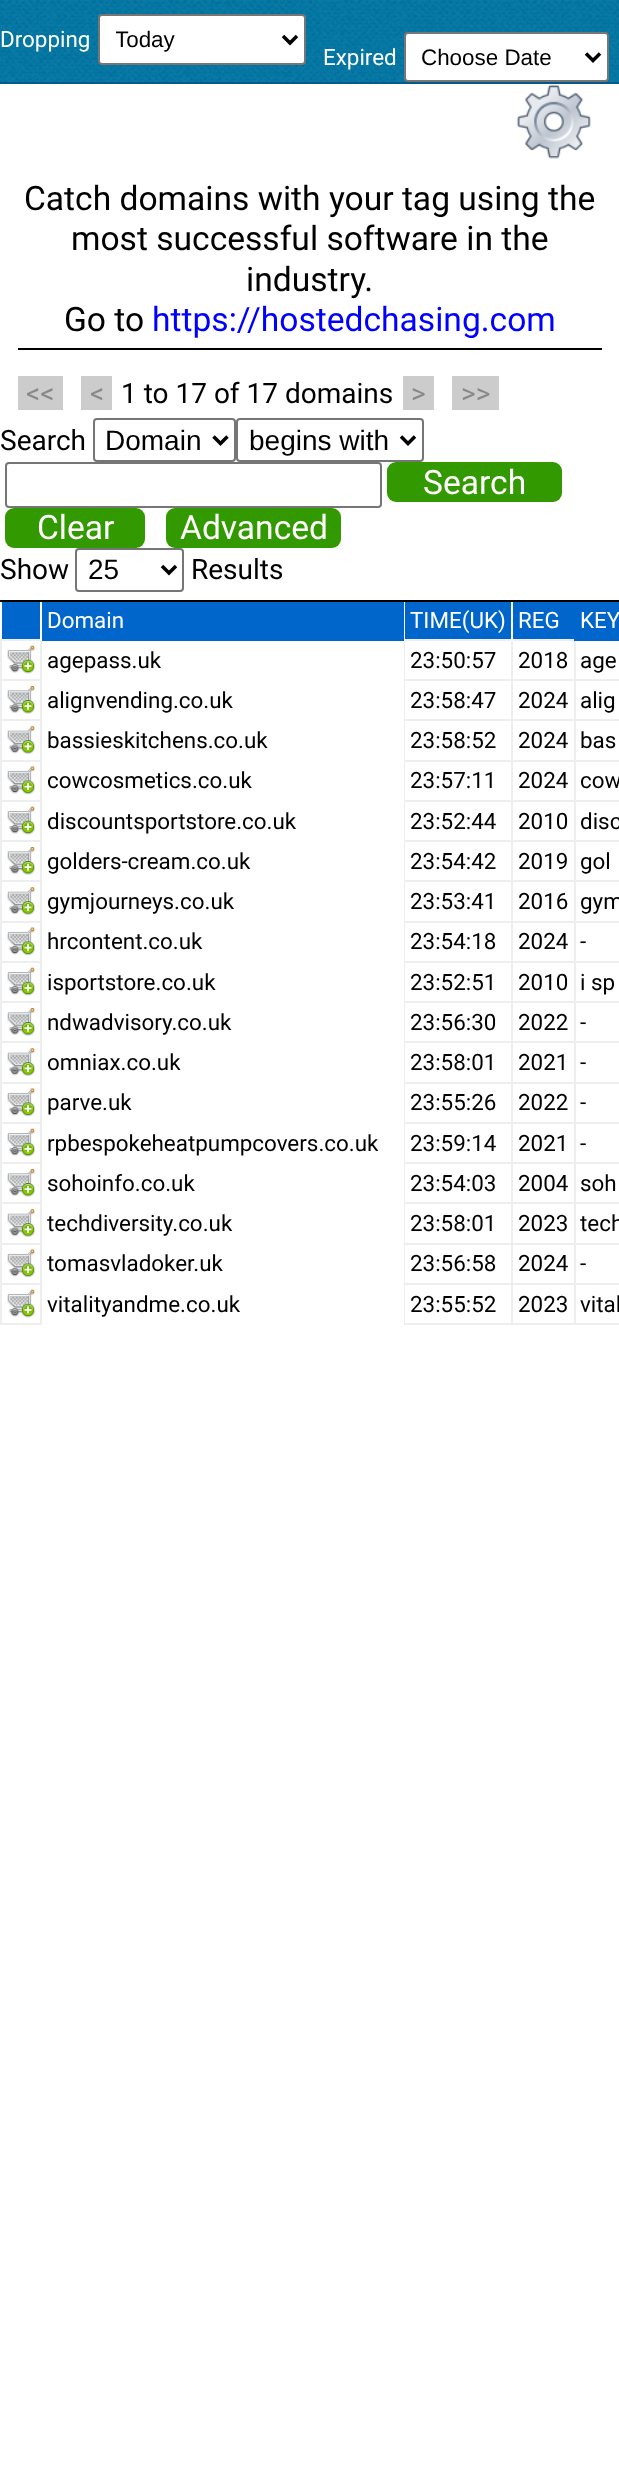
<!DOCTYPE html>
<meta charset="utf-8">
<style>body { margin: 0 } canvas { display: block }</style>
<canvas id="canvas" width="619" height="2469"></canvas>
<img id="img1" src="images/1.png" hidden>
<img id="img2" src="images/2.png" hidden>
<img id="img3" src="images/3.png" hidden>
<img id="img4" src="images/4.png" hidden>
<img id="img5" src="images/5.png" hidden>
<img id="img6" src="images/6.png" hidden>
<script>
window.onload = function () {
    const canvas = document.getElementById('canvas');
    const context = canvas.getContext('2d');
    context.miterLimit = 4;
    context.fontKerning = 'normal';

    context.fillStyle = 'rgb(255, 255, 255)';
    context.fillRect(0, 0, 619, 2469);
    context.drawImage(document.getElementById('img1'), 0, 0, 619, 82);
    context.fillStyle = 'rgb(5, 89, 136)';
    context.fillRect(0, 82, 619, 2);
    context.fillStyle = 'rgb(255, 255, 255)';
    context.beginPath();
    context.roundRect(99, 15, 206, 49, 3);
    context.fill();
    context.strokeStyle = 'rgb(118, 118, 118)';
    context.lineWidth = 2;
    context.stroke();
    context.beginPath();
    context.moveTo(283, 36);
    context.lineTo(290, 43);
    context.lineTo(297, 36);
    context.strokeStyle = 'rgb(0, 0, 0)';
    context.lineWidth = 3.5;
    context.stroke();
    context.beginPath();
    context.roundRect(405, 33, 203, 48, 3);
    context.fill();
    context.strokeStyle = 'rgb(118, 118, 118)';
    context.lineWidth = 2;
    context.stroke();
    context.beginPath();
    context.moveTo(586, 53.5);
    context.lineTo(593, 60.5);
    context.lineTo(600, 53.5);
    context.strokeStyle = 'rgb(0, 0, 0)';
    context.lineWidth = 3.5;
    context.stroke();
    context.drawImage(document.getElementById('img2'), 516, 84, 75, 75);
    context.fillStyle = 'rgb(0, 0, 0)';
    context.fillRect(18, 348, 584, 2);
    context.fillStyle = 'rgb(204, 204, 204)';
    context.fillRect(18, 376, 45, 34);
    context.fillRect(81, 376, 31, 34);
    context.fillRect(403, 376, 31, 34);
    context.fillRect(452, 376, 47, 34);
    context.beginPath();
    context.roundRect(94, 419, 141, 42, 3);
    context.strokeStyle = 'rgb(118, 118, 118)';
    context.lineWidth = 2;
    context.stroke();
    context.beginPath();
    context.moveTo(213.5, 436.5);
    context.lineTo(220.5, 443.5);
    context.lineTo(227.5, 436.5);
    context.strokeStyle = 'rgb(0, 0, 0)';
    context.lineWidth = 3.5;
    context.stroke();
    context.beginPath();
    context.roundRect(237, 419, 186, 42, 3);
    context.strokeStyle = 'rgb(118, 118, 118)';
    context.lineWidth = 2;
    context.stroke();
    context.beginPath();
    context.moveTo(401, 436.5);
    context.lineTo(408, 443.5);
    context.lineTo(415, 436.5);
    context.strokeStyle = 'rgb(0, 0, 0)';
    context.lineWidth = 3.5;
    context.stroke();
    context.beginPath();
    context.roundRect(6, 463, 375, 44, 3);
    context.strokeStyle = 'rgb(118, 118, 118)';
    context.lineWidth = 2;
    context.stroke();
    context.fillStyle = 'rgb(51, 153, 0)';
    context.beginPath();
    context.roundRect(387, 462, 175, 40, 9);
    context.fill();
    context.beginPath();
    context.roundRect(5, 508, 140, 40, 9);
    context.fill();
    context.beginPath();
    context.roundRect(166, 508, 175, 40, 9);
    context.fill();
    context.beginPath();
    context.roundRect(76, 549, 107, 42, 3);
    context.stroke();
    context.beginPath();
    context.moveTo(162, 566);
    context.lineTo(169, 573);
    context.lineTo(176, 566);
    context.strokeStyle = 'rgb(0, 0, 0)';
    context.lineWidth = 3.5;
    context.stroke();
    context.fillStyle = 'rgb(0, 0, 0)';
    context.fillRect(0, 600, 619, 2);
    context.fillStyle = 'rgb(0, 102, 204)';
    context.fillRect(2, 602, 38, 37);
    context.fillStyle = 'rgb(238, 238, 238)';
    context.fillRect(40, 1283, 2, 42);
    context.fillRect(0, 1283, 42, 2);
    context.fillRect(40, 1243, 2, 42);
    context.fillRect(0, 1243, 42, 2);
    context.fillRect(40, 1202, 2, 42);
    context.fillRect(0, 1202, 42, 2);
    context.fillRect(40, 1162, 2, 42);
    context.fillRect(0, 1162, 42, 2);
    context.fillRect(40, 1122, 2, 42);
    context.fillRect(0, 1122, 42, 2);
    context.fillRect(40, 1082, 2, 42);
    context.fillRect(0, 1082, 42, 2);
    context.fillRect(40, 1041, 2, 42);
    context.fillRect(0, 1041, 42, 2);
    context.fillRect(40, 1001, 2, 42);
    context.fillRect(0, 1001, 42, 2);
    context.fillRect(40, 961, 2, 42);
    context.fillRect(0, 961, 42, 2);
    context.fillRect(40, 921, 2, 42);
    context.fillRect(0, 921, 42, 2);
    context.fillRect(40, 880, 2, 42);
    context.fillRect(0, 880, 42, 2);
    context.fillRect(40, 840, 2, 42);
    context.fillRect(0, 840, 42, 2);
    context.fillRect(40, 800, 2, 42);
    context.fillRect(0, 800, 42, 2);
    context.fillRect(40, 760, 2, 42);
    context.fillRect(0, 760, 42, 2);
    context.fillRect(40, 719, 2, 42);
    context.fillRect(0, 719, 42, 2);
    context.fillRect(40, 679, 2, 42);
    context.fillRect(0, 679, 42, 2);
    context.fillRect(40, 639, 2, 42);
    context.fillRect(0, 639, 42, 2);
    context.fillStyle = 'rgb(255, 255, 255)';
    context.fillRect(40, 639, 2, 2);
    context.fillStyle = 'rgb(238, 238, 238)';
    context.fillRect(574, 679, 45, 2);
    context.fillRect(574, 719, 45, 2);
    context.fillRect(574, 760, 45, 2);
    context.fillRect(574, 800, 45, 2);
    context.fillRect(574, 840, 45, 2);
    context.fillRect(574, 880, 45, 2);
    context.fillRect(574, 921, 45, 2);
    context.fillRect(574, 961, 45, 2);
    context.fillRect(574, 1001, 45, 2);
    context.fillRect(574, 1041, 45, 2);
    context.fillRect(574, 1082, 45, 2);
    context.fillRect(574, 1122, 45, 2);
    context.fillRect(574, 1162, 45, 2);
    context.fillRect(574, 1202, 45, 2);
    context.fillRect(574, 1243, 45, 2);
    context.fillRect(574, 1283, 45, 2);
    context.fillRect(574, 1323, 45, 2);
    context.fillRect(574, 1283, 2, 42);
    context.fillRect(511, 1283, 65, 2);
    context.fillRect(574, 1243, 2, 42);
    context.fillRect(511, 1243, 65, 2);
    context.fillRect(574, 1202, 2, 42);
    context.fillRect(511, 1202, 65, 2);
    context.fillRect(574, 1162, 2, 42);
    context.fillRect(511, 1162, 65, 2);
    context.fillRect(574, 1122, 2, 42);
    context.fillRect(511, 1122, 65, 2);
    context.fillRect(574, 1082, 2, 42);
    context.fillRect(511, 1082, 65, 2);
    context.fillRect(574, 1041, 2, 42);
    context.fillRect(511, 1041, 65, 2);
    context.fillRect(574, 1001, 2, 42);
    context.fillRect(511, 1001, 65, 2);
    context.fillRect(574, 961, 2, 42);
    context.fillRect(511, 961, 65, 2);
    context.fillRect(574, 921, 2, 42);
    context.fillRect(511, 921, 65, 2);
    context.fillRect(574, 880, 2, 42);
    context.fillRect(511, 880, 65, 2);
    context.fillRect(574, 840, 2, 42);
    context.fillRect(511, 840, 65, 2);
    context.fillRect(574, 800, 2, 42);
    context.fillRect(511, 800, 65, 2);
    context.fillRect(574, 760, 2, 42);
    context.fillRect(511, 760, 65, 2);
    context.fillRect(574, 719, 2, 42);
    context.fillRect(511, 719, 65, 2);
    context.fillRect(574, 679, 2, 42);
    context.fillRect(511, 679, 65, 2);
    context.fillRect(574, 639, 2, 42);
    context.fillRect(511, 639, 65, 2);
    context.fillRect(511, 1323, 65, 2);
    context.fillRect(511, 1283, 2, 42);
    context.fillRect(403, 1283, 110, 2);
    context.fillRect(511, 1243, 2, 42);
    context.fillRect(403, 1243, 110, 2);
    context.fillRect(511, 1202, 2, 42);
    context.fillRect(403, 1202, 110, 2);
    context.fillRect(511, 1162, 2, 42);
    context.fillRect(403, 1162, 110, 2);
    context.fillRect(511, 1122, 2, 42);
    context.fillRect(403, 1122, 110, 2);
    context.fillRect(511, 1082, 2, 42);
    context.fillRect(403, 1082, 110, 2);
    context.fillRect(511, 1041, 2, 42);
    context.fillRect(403, 1041, 110, 2);
    context.fillRect(511, 1001, 2, 42);
    context.fillRect(403, 1001, 110, 2);
    context.fillRect(511, 961, 2, 42);
    context.fillRect(403, 961, 110, 2);
    context.fillRect(511, 921, 2, 42);
    context.fillRect(403, 921, 110, 2);
    context.fillRect(511, 880, 2, 42);
    context.fillRect(403, 880, 110, 2);
    context.fillRect(511, 840, 2, 42);
    context.fillRect(403, 840, 110, 2);
    context.fillRect(511, 800, 2, 42);
    context.fillRect(403, 800, 110, 2);
    context.fillRect(511, 760, 2, 42);
    context.fillRect(403, 760, 110, 2);
    context.fillRect(511, 719, 2, 42);
    context.fillRect(403, 719, 110, 2);
    context.fillRect(511, 679, 2, 42);
    context.fillRect(403, 679, 110, 2);
    context.fillRect(511, 639, 2, 42);
    context.fillRect(403, 639, 110, 2);
    context.fillRect(403, 1323, 110, 2);
    context.fillRect(404, 1283, 1, 42);
    context.fillRect(404, 1243, 1, 42);
    context.fillRect(404, 1202, 1, 42);
    context.fillRect(404, 1162, 1, 42);
    context.fillRect(404, 1122, 1, 42);
    context.fillRect(404, 1082, 1, 42);
    context.fillRect(404, 1041, 1, 42);
    context.fillRect(404, 1001, 1, 42);
    context.fillRect(404, 961, 1, 42);
    context.fillRect(404, 921, 1, 42);
    context.fillRect(404, 880, 1, 42);
    context.fillRect(404, 840, 1, 42);
    context.fillRect(404, 800, 1, 42);
    context.fillRect(404, 760, 1, 42);
    context.fillRect(404, 719, 1, 42);
    context.fillRect(404, 679, 1, 42);
    context.fillRect(404, 639, 1, 42);
    context.fillStyle = 'rgb(255, 255, 255)';
    context.fillRect(404, 639, 1, 2);
    context.fillStyle = 'rgb(0, 102, 204)';
    context.fillRect(42, 602, 362, 39);
    context.fillRect(405, 602, 106, 37);
    context.fillStyle = 'rgb(255, 255, 255)';
    context.fillRect(511, 639, 2, 2);
    context.fillStyle = 'rgb(0, 102, 204)';
    context.fillRect(513, 602, 61, 37);
    context.fillRect(574, 602, 45, 39);
    context.fillStyle = 'rgb(238, 238, 238)';
    context.fillRect(0, 1323, 42, 2);
    context.fillRect(0, 1283, 2, 42);
    context.fillRect(0, 1243, 2, 42);
    context.fillRect(0, 1202, 2, 42);
    context.fillRect(0, 1162, 2, 42);
    context.fillRect(0, 1122, 2, 42);
    context.fillRect(0, 1082, 2, 42);
    context.fillRect(0, 1041, 2, 42);
    context.fillRect(0, 1001, 2, 42);
    context.fillRect(0, 961, 2, 42);
    context.fillRect(0, 921, 2, 42);
    context.fillRect(0, 880, 2, 42);
    context.fillRect(0, 840, 2, 42);
    context.fillRect(0, 800, 2, 42);
    context.fillRect(0, 760, 2, 42);
    context.fillRect(0, 719, 2, 42);
    context.fillRect(0, 679, 2, 42);
    context.fillRect(0, 639, 2, 42);
    context.drawImage(document.getElementById('img3'), 7, 645, 28, 29);
    context.fillStyle = 'rgb(255, 255, 255)';
    context.fillRect(403, 679, 1, 2);
    context.drawImage(document.getElementById('img4'), 7, 686, 28, 28);
    context.fillRect(403, 719, 1, 2);
    context.drawImage(document.getElementById('img5'), 7, 726, 28, 28);
    context.fillRect(403, 760, 1, 42);
    context.drawImage(document.getElementById('img6'), 7, 766, 28, 29);
    context.drawImage(document.getElementById('img3'), 7, 806, 28, 29);
    context.fillRect(403, 840, 1, 2);
    context.drawImage(document.getElementById('img4'), 7, 847, 28, 28);
    context.fillRect(403, 880, 1, 2);
    context.drawImage(document.getElementById('img5'), 7, 887, 28, 28);
    context.fillRect(403, 921, 1, 42);
    context.drawImage(document.getElementById('img6'), 7, 927, 28, 29);
    context.drawImage(document.getElementById('img3'), 7, 967, 28, 29);
    context.fillRect(403, 1001, 1, 2);
    context.drawImage(document.getElementById('img4'), 7, 1008, 28, 28);
    context.fillRect(403, 1041, 1, 2);
    context.drawImage(document.getElementById('img5'), 7, 1048, 28, 28);
    context.fillRect(403, 1082, 1, 42);
    context.drawImage(document.getElementById('img6'), 7, 1088, 28, 29);
    context.drawImage(document.getElementById('img3'), 7, 1128, 28, 29);
    context.fillRect(403, 1162, 1, 2);
    context.drawImage(document.getElementById('img4'), 7, 1169, 28, 28);
    context.fillRect(403, 1202, 1, 2);
    context.drawImage(document.getElementById('img5'), 7, 1209, 28, 28);
    context.fillRect(403, 1243, 1, 42);
    context.drawImage(document.getElementById('img6'), 7, 1249, 28, 29);
    context.drawImage(document.getElementById('img3'), 7, 1289, 28, 29);
    context.fillRect(403, 1323, 1, 2);
    context.font = '22.4px Roboto';
    context.fillText('Dropping', 0, 47);
    context.save();
    context.beginPath();
    context.rect(116, 25, 152, 29);
    context.clip();
    context.font = '22.4px Liberation Sans';
    context.fillStyle = 'rgb(0, 0, 0)';
    context.fillText('Today', 115, 47);
    context.restore();
    context.fillText('Expired', 323, 65);
    context.font = '22.4px Liberation Sans';
    context.fillStyle = 'rgb(0, 0, 0)';
    context.fillText('Choose Date', 421, 65);
    context.font = '33.6px Roboto';
    context.fillText('Catch domains with your tag using the', 24, 210);
    context.fillText('most successful software in the', 71, 250);
    context.fillText('industry.', 246, 291);
    context.fillText('Go to', 64, 331);
    context.fillStyle = 'rgb(0, 0, 255)';
    context.fillText('https://hostedchasing.com', 152, 331);
    context.font = '28px Roboto';
    context.fillStyle = 'rgb(136, 136, 136)';
    context.fillText('<<', 26, 403);
    context.fillText('<', 90, 403);
    context.fillStyle = 'rgb(0, 0, 0)';
    context.fillText('1 to 17 of 17 domains', 121, 403);
    context.fillStyle = 'rgb(136, 136, 136)';
    context.fillText('>', 411, 403);
    context.fillText('>>', 461, 403);
    context.fillStyle = 'rgb(0, 0, 0)';
    context.fillText('Search', 0, 450);
    context.font = '28px Liberation Sans';
    context.fillText('Domain', 105, 450);
    context.fillText('begins with', 249, 450);
    context.font = '33.6px Roboto';
    context.fillStyle = 'rgb(255, 255, 255)';
    context.fillText('Search', 423, 494);
    context.fillText('Clear', 37, 539);
    context.fillText('Advanced', 180, 539);
    context.font = '28px Roboto';
    context.fillStyle = 'rgb(0, 0, 0)';
    context.fillText('Show', 0, 579);
    context.font = '28px Liberation Sans';
    context.fillText('25', 88, 579);
    context.font = '28px Roboto';
    context.fillText('Results', 191, 579);
    context.font = '22.4px Roboto';
    context.fillStyle = 'rgb(255, 255, 255)';
    context.fillText('Domain', 47, 628);
    context.fillText('TIME(UK)', 410, 628);
    context.fillText('REG', 518, 628);
    context.fillText('KEY', 580, 628);
    context.fillStyle = 'rgb(0, 0, 0)';
    context.fillText('agepass.uk', 47, 668);
    context.fillText('23:50:57', 410, 668);
    context.fillText('2018', 518, 668);
    context.fillText('age', 580, 668);
    context.fillText('alignvending.co.uk', 47, 708);
    context.fillText('23:58:47', 410, 708);
    context.fillText('2024', 518, 708);
    context.fillText('alig', 580, 708);
    context.fillText('bassieskitchens.co.uk', 47, 748);
    context.fillText('23:58:52', 410, 748);
    context.fillText('2024', 518, 748);
    context.fillText('bas', 580, 748);
    context.fillText('cowcosmetics.co.uk', 47, 788);
    context.fillText('23:57:11', 410, 788);
    context.fillText('2024', 518, 788);
    context.fillText('cow', 580, 788);
    context.fillText('discountsportstore.co.uk', 47, 829);
    context.fillText('23:52:44', 410, 829);
    context.fillText('2010', 518, 829);
    context.fillText('disc', 580, 829);
    context.fillText('golders-cream.co.uk', 47, 869);
    context.fillText('23:54:42', 410, 869);
    context.fillText('2019', 518, 869);
    context.fillText('gol', 580, 869);
    context.fillText('gymjourneys.co.uk', 47, 909);
    context.fillText('23:53:41', 410, 909);
    context.fillText('2016', 518, 909);
    context.fillText('gym', 580, 909);
    context.fillText('hrcontent.co.uk', 47, 949);
    context.fillText('23:54:18', 410, 949);
    context.fillText('2024', 518, 949);
    context.fillText('-', 580, 949);
    context.fillText('isportstore.co.uk', 47, 990);
    context.fillText('23:52:51', 410, 990);
    context.fillText('2010', 518, 990);
    context.fillText('i sp', 580, 990);
    context.fillText('ndwadvisory.co.uk', 47, 1030);
    context.fillText('23:56:30', 410, 1030);
    context.fillText('2022', 518, 1030);
    context.fillText('-', 580, 1030);
    context.fillText('omniax.co.uk', 47, 1070);
    context.fillText('23:58:01', 410, 1070);
    context.fillText('2021', 518, 1070);
    context.fillText('-', 580, 1070);
    context.fillText('parve.uk', 47, 1110);
    context.fillText('23:55:26', 410, 1110);
    context.fillText('2022', 518, 1110);
    context.fillText('-', 580, 1110);
    context.fillText('rpbespokeheatpumpcovers.co.uk', 47, 1151);
    context.fillText('23:59:14', 410, 1151);
    context.fillText('2021', 518, 1151);
    context.fillText('-', 580, 1151);
    context.fillText('sohoinfo.co.uk', 47, 1191);
    context.fillText('23:54:03', 410, 1191);
    context.fillText('2004', 518, 1191);
    context.fillText('soh', 580, 1191);
    context.fillText('techdiversity.co.uk', 47, 1231);
    context.fillText('23:58:01', 410, 1231);
    context.fillText('2023', 518, 1231);
    context.fillText('tech', 580, 1231);
    context.fillText('tomasvladoker.uk', 47, 1271);
    context.fillText('23:56:58', 410, 1271);
    context.fillText('2024', 518, 1271);
    context.fillText('-', 580, 1271);
    context.fillText('vitalityandme.co.uk', 47, 1312);
    context.fillText('23:55:52', 410, 1312);
    context.fillText('2023', 518, 1312);
    context.fillText('vital', 580, 1312);
};
</script>
